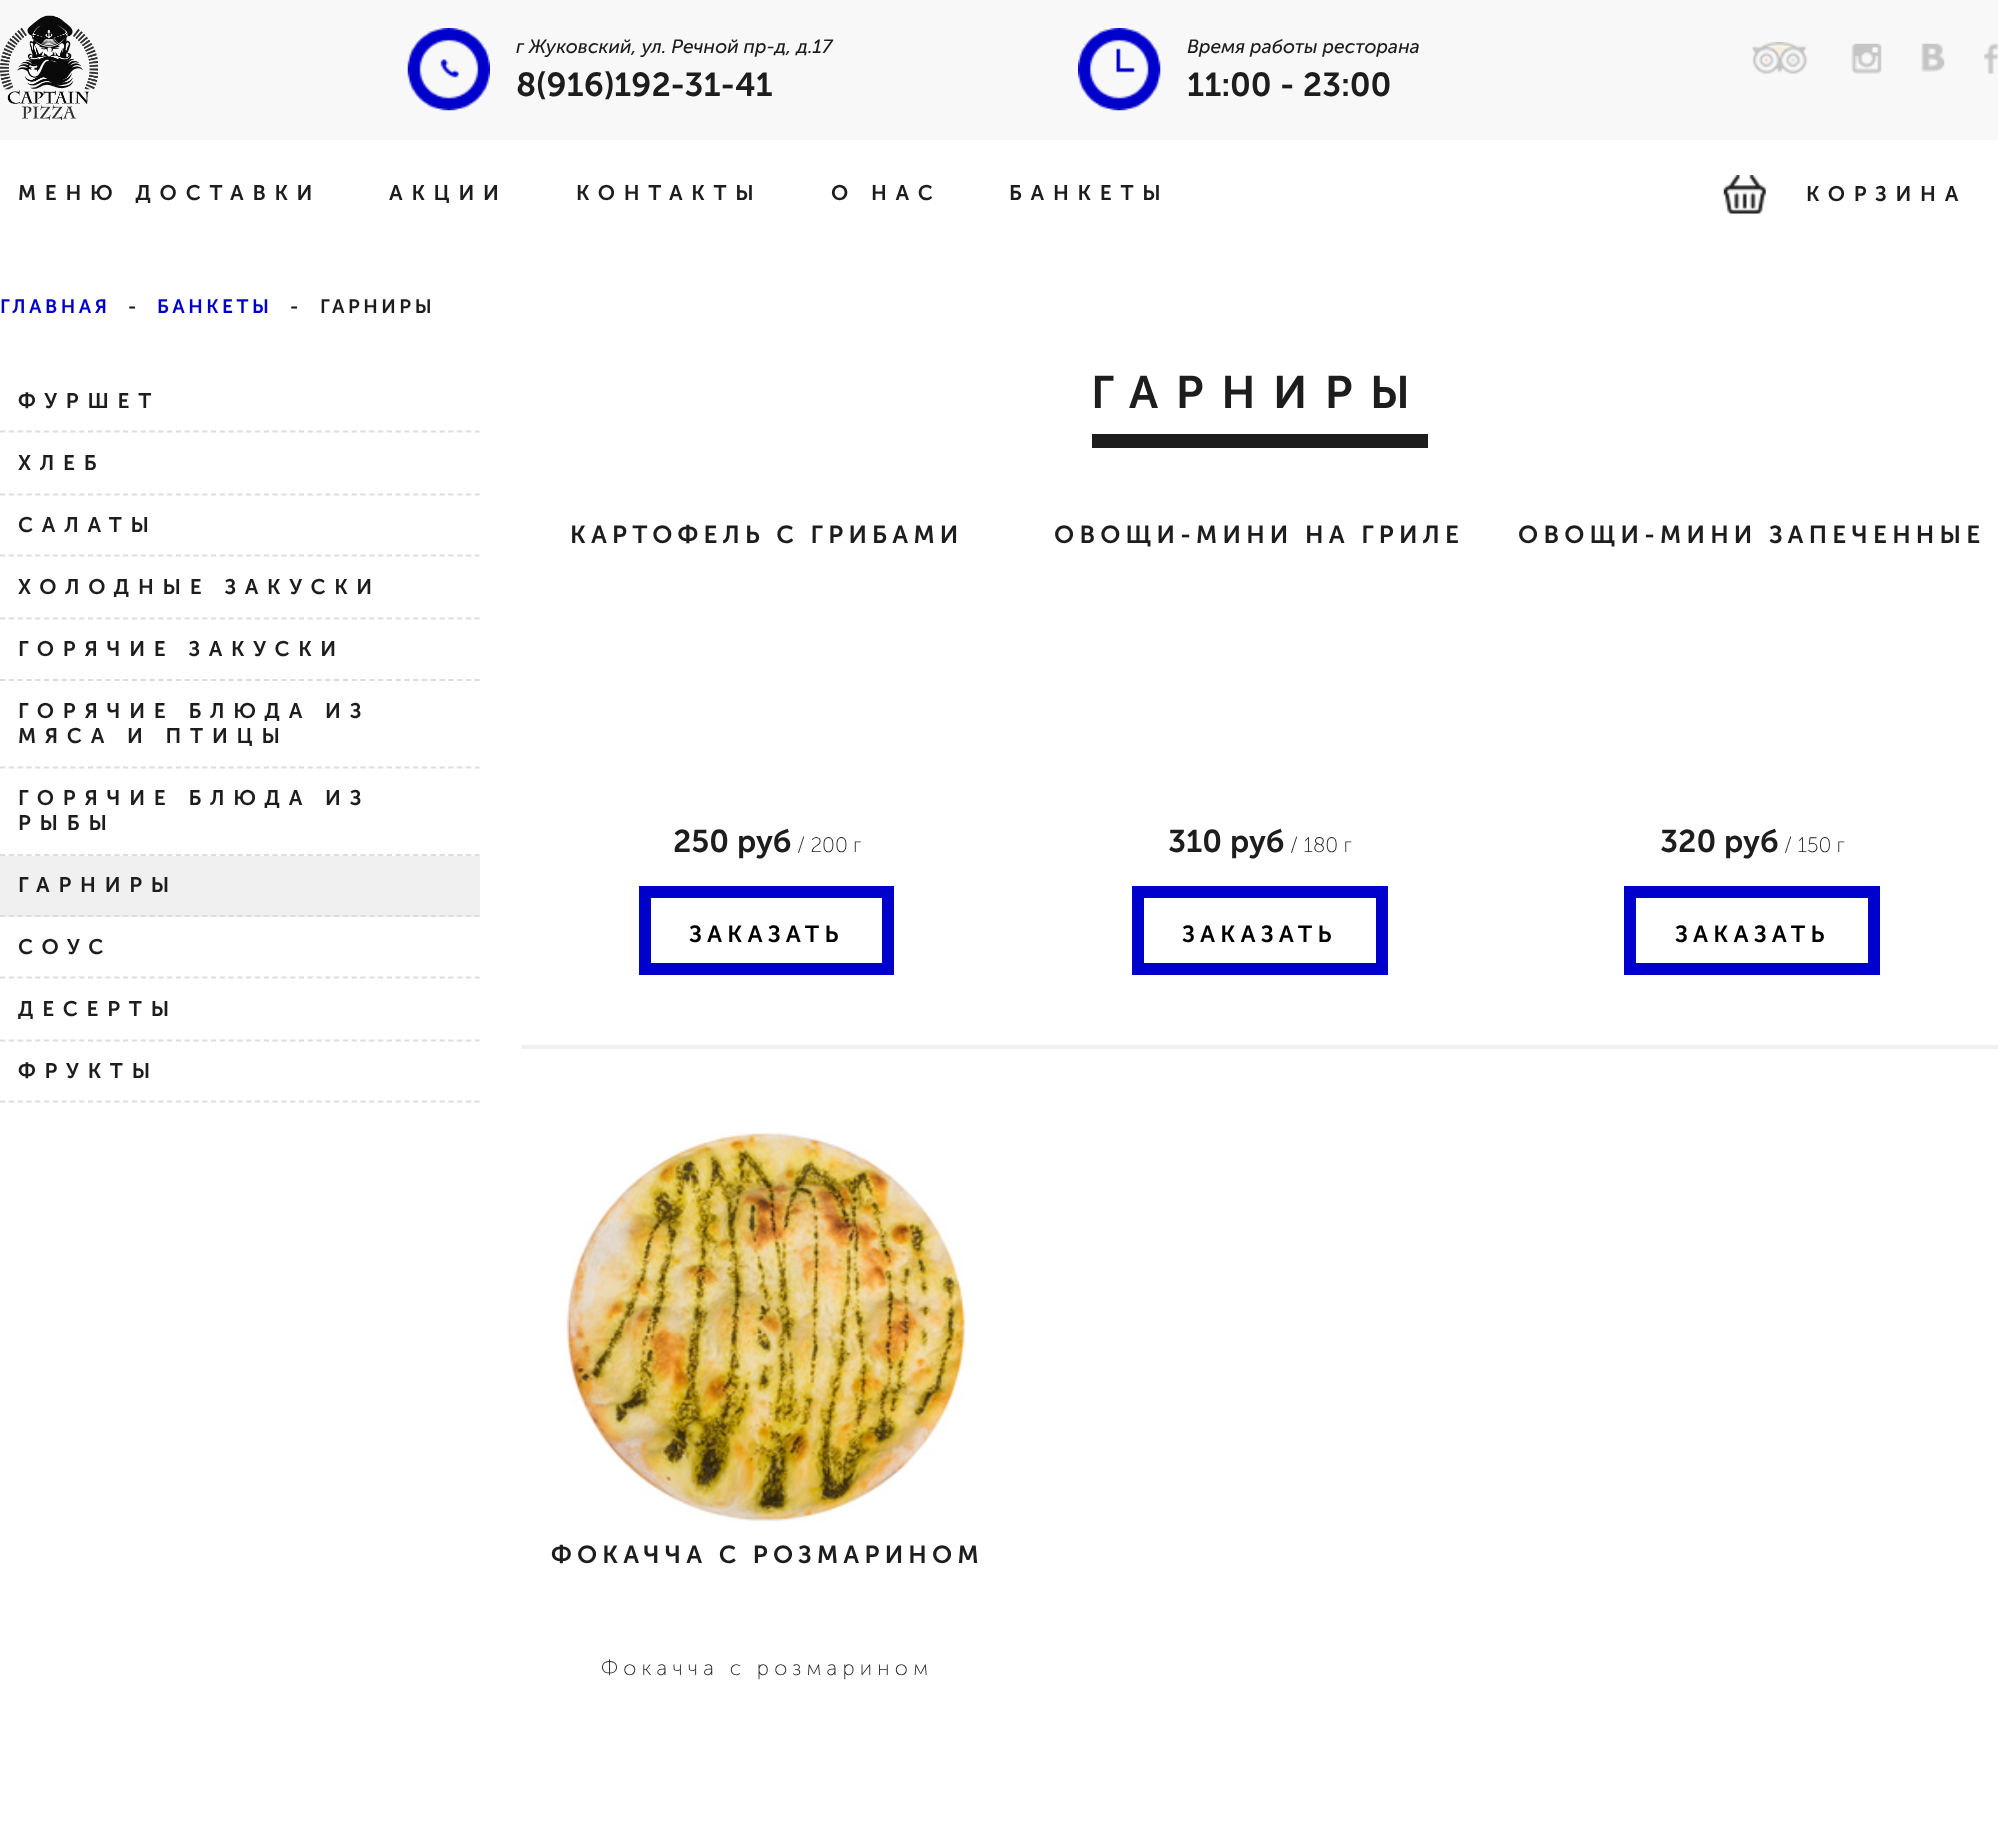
<!DOCTYPE html>
<meta charset="utf-8">
<style>body { margin: 0 } canvas { display: block }</style>
<canvas id="canvas" width="1998" height="1830"></canvas>
<img id="img1" src="images/1.png" hidden>
<img id="img2" src="images/2.png" hidden>
<img id="img3" src="images/3.png" hidden>
<img id="img4" src="images/4.png" hidden>
<img id="img5" src="images/5.png" hidden>
<img id="img6" src="images/6.png" hidden>
<img id="img7" src="images/7.png" hidden>
<img id="img8" src="images/8.png" hidden>
<img id="img9" src="images/9.png" hidden>
<script>
window.onload = function () {
    const canvas = document.getElementById('canvas');
    const context = canvas.getContext('2d');
    context.miterLimit = 4;
    context.fontKerning = 'normal';

    context.fillStyle = 'rgb(255, 255, 255)';
    context.fillRect(0, 0, 1998, 1830);
    context.fillStyle = 'rgb(248, 248, 248)';
    context.fillRect(0, 0, 1998, 140);
    context.drawImage(document.getElementById('img1'), 0, 15, 98, 105);
    context.drawImage(document.getElementById('img2'), 407, 28, 83, 83);
    context.drawImage(document.getElementById('img3'), 1078, 28, 83, 83);
    context.drawImage(document.getElementById('img4'), 1751, 42, 57, 32);
    context.drawImage(document.getElementById('img5'), 1851, 43, 31, 31);
    context.drawImage(document.getElementById('img6'), 1921, 43, 24, 29);
    context.drawImage(document.getElementById('img7'), 1984, 43, 14, 31);
    context.drawImage(document.getElementById('img8'), 1723, 175, 43, 39);
    context.beginPath();
    context.moveTo(0, 431.5);
    context.lineTo(479.5, 431.5);
    context.strokeStyle = 'rgb(221, 221, 221)';
    context.lineWidth = 1.8;
    context.setLineDash([5.25, 3.54]);
    context.stroke();
    context.beginPath();
    context.moveTo(0, 494.5);
    context.lineTo(479.5, 494.5);
    context.stroke();
    context.beginPath();
    context.moveTo(0, 555.5);
    context.lineTo(479.5, 555.5);
    context.stroke();
    context.beginPath();
    context.moveTo(0, 618.5);
    context.lineTo(479.5, 618.5);
    context.stroke();
    context.beginPath();
    context.moveTo(0, 680);
    context.lineTo(479.5, 680);
    context.stroke();
    context.beginPath();
    context.moveTo(0, 767.5);
    context.lineTo(479.5, 767.5);
    context.stroke();
    context.beginPath();
    context.moveTo(0, 855);
    context.lineTo(479.5, 855);
    context.stroke();
    context.fillStyle = 'rgb(240, 240, 240)';
    context.fillRect(0, 856, 480, 61);
    context.beginPath();
    context.moveTo(0, 916);
    context.lineTo(479.5, 916);
    context.stroke();
    context.beginPath();
    context.moveTo(0, 977.5);
    context.lineTo(479.5, 977.5);
    context.stroke();
    context.beginPath();
    context.moveTo(0, 1040.5);
    context.lineTo(479.5, 1040.5);
    context.stroke();
    context.beginPath();
    context.moveTo(0, 1101.5);
    context.lineTo(479.5, 1101.5);
    context.stroke();
    context.fillStyle = 'rgb(29, 29, 29)';
    context.fillRect(1092, 434, 336, 14);
    context.strokeStyle = 'rgb(0, 0, 205)';
    context.lineWidth = 12;
    context.setLineDash([]);
    context.strokeRect(645, 892, 243, 77);
    context.strokeRect(1138, 892, 244, 77);
    context.strokeRect(1630, 892, 244, 77);
    context.fillStyle = 'rgb(240, 240, 240)';
    context.fillRect(522, 1045, 1476, 4);
    context.drawImage(document.getElementById('img9'), 564, 1132, 402, 390);
    context.font = 'italic 19.25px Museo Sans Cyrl';
    context.fillStyle = 'rgb(29, 29, 29)';
    context.fillText('г Жуковский, ул. Речной пр-д, д.17', 516, 53);
    context.font = '600 33.25px Museo Sans Cyrl';
    context.fillText('8(916)192-31-41', 516, 96);
    context.font = 'italic 19.25px Museo Sans Cyrl';
    context.fillText('Время работы ресторана', 1187, 53);
    context.font = '600 33.25px Museo Sans Cyrl';
    context.fillText('11:00 - 23:00', 1187, 96);
    context.letterSpacing = '8.75px';
    context.font = '600 21px Museo Sans Cyrl';
    context.fillText('МЕНЮ ДОСТАВКИ', 18, 200);
    context.fillText('АКЦИИ', 389, 200);
    context.fillText('КОНТАКТЫ', 576, 200);
    context.fillText('О НАС', 831, 200);
    context.fillText('БАНКЕТЫ', 1009, 200);
    context.fillText('КОРЗИНА', 1806, 201);
    context.letterSpacing = '3.5px';
    context.font = '600 19.25px Museo Sans Cyrl';
    context.fillStyle = 'rgb(0, 0, 205)';
    context.fillText('ГЛАВНАЯ', 0, 313);
    context.fillStyle = 'rgb(29, 29, 29)';
    context.fillText('-', 128, 313);
    context.fillStyle = 'rgb(0, 0, 205)';
    context.fillText('БАНКЕТЫ', 157, 313);
    context.fillStyle = 'rgb(29, 29, 29)';
    context.fillText('-', 290, 313);
    context.fillText('ГАРНИРЫ', 320, 313);
    context.letterSpacing = '8.75px';
    context.font = '600 21px Museo Sans Cyrl';
    context.fillText('ФУРШЕТ', 18, 408);
    context.fillText('ХЛЕБ', 18, 470);
    context.fillText('САЛАТЫ', 18, 532);
    context.fillText('ХОЛОДНЫЕ ЗАКУСКИ', 18, 594);
    context.fillText('ГОРЯЧИЕ ЗАКУСКИ', 18, 656);
    context.fillText('ГОРЯЧИЕ БЛЮДА ИЗ', 18, 718);
    context.fillText('МЯСА И ПТИЦЫ', 18, 743);
    context.fillText('ГОРЯЧИЕ БЛЮДА ИЗ', 18, 805);
    context.fillText('РЫБЫ', 18, 830);
    context.fillText('ГАРНИРЫ', 18, 892);
    context.fillText('СОУС', 18, 954);
    context.fillText('ДЕСЕРТЫ', 18, 1016);
    context.fillText('ФРУКТЫ', 18, 1078);
    context.letterSpacing = '17.5px';
    context.font = '600 45.5px Museo Sans Cyrl';
    context.fillText('ГАРНИРЫ', 1091, 408);
    context.letterSpacing = '5.25px';
    context.font = '600 24.5px Museo Sans Cyrl';
    context.fillText('КАРТОФЕЛЬ С ГРИБАМИ', 570, 543);
    context.letterSpacing = '0px';
    context.font = '600 31.5px Museo Sans Cyrl';
    context.fillText('250 руб', 673, 852);
    context.font = '200 21px Museo Sans Cyrl';
    context.fillText('/ 200 г', 797, 852);
    context.letterSpacing = '5.25px';
    context.font = '600 23.25px Museo Sans Cyrl';
    context.fillStyle = 'rgb(0, 0, 0)';
    context.fillText('ЗАКАЗАТЬ', 689, 942);
    context.font = '600 24.5px Museo Sans Cyrl';
    context.fillStyle = 'rgb(29, 29, 29)';
    context.fillText('ОВОЩИ-МИНИ НА ГРИЛЕ', 1054, 543);
    context.letterSpacing = '0px';
    context.font = '600 31.5px Museo Sans Cyrl';
    context.fillText('310 руб', 1168, 852);
    context.font = '200 21px Museo Sans Cyrl';
    context.fillText('/ 180 г', 1290, 852);
    context.letterSpacing = '5.25px';
    context.font = '600 23.25px Museo Sans Cyrl';
    context.fillStyle = 'rgb(0, 0, 0)';
    context.fillText('ЗАКАЗАТЬ', 1182, 942);
    context.font = '600 24.5px Museo Sans Cyrl';
    context.fillStyle = 'rgb(29, 29, 29)';
    context.fillText('ОВОЩИ-МИНИ ЗАПЕЧЕННЫЕ', 1518, 543);
    context.letterSpacing = '0px';
    context.font = '600 31.5px Museo Sans Cyrl';
    context.fillText('320 руб', 1660, 852);
    context.font = '200 21px Museo Sans Cyrl';
    context.fillText('/ 150 г', 1784, 852);
    context.letterSpacing = '5.25px';
    context.font = '600 23.25px Museo Sans Cyrl';
    context.fillStyle = 'rgb(0, 0, 0)';
    context.fillText('ЗАКАЗАТЬ', 1675, 942);
    context.font = '600 24.5px Museo Sans Cyrl';
    context.fillStyle = 'rgb(29, 29, 29)';
    context.fillText('ФОКАЧЧА С РОЗМАРИНОМ', 551, 1563);
    context.font = '200 21px Museo Sans Cyrl';
    context.fillText('Фокачча с розмарином', 601, 1675);
};
</script>
